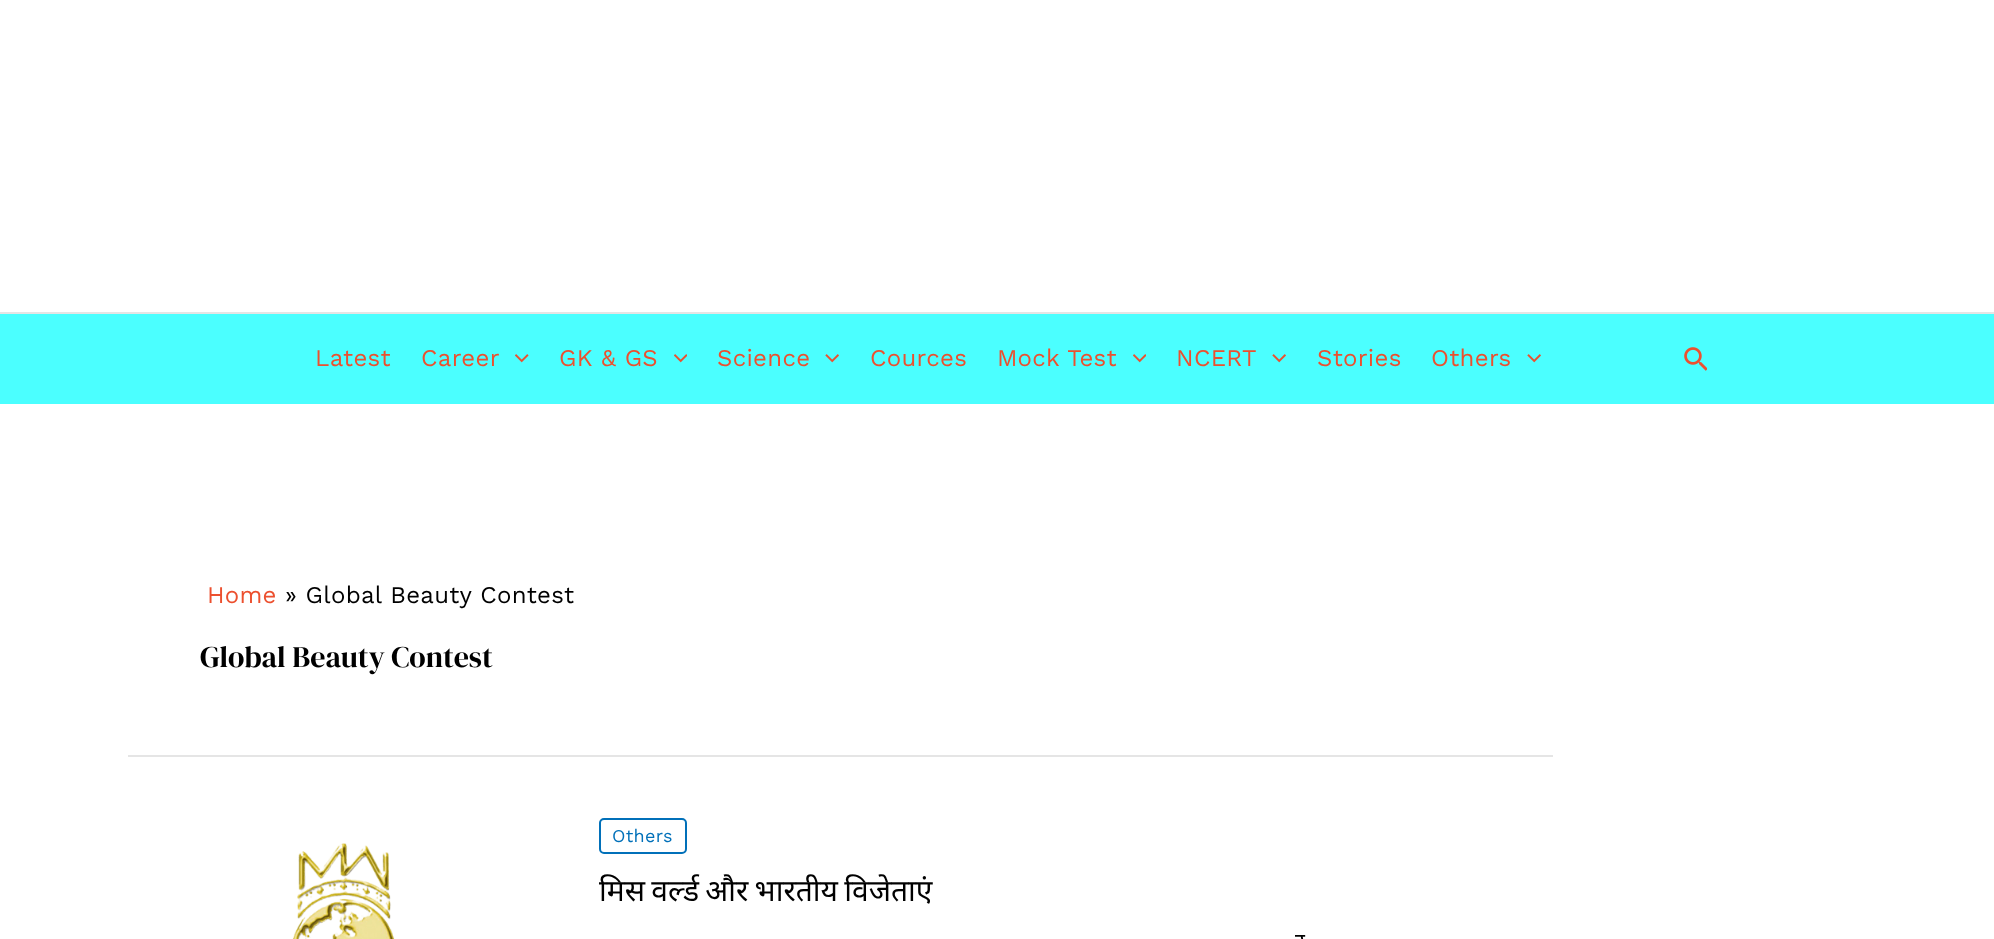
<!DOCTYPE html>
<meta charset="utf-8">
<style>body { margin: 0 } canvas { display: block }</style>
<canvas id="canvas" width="1994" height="939"></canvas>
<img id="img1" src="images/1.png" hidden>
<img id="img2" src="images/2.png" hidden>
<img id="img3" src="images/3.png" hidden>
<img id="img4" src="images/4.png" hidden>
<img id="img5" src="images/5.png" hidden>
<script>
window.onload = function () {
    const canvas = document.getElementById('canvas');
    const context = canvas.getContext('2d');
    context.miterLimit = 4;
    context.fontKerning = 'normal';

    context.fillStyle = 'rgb(255, 255, 255)';
    context.fillRect(0, 0, 1994, 939);
    context.fillStyle = 'rgb(229, 229, 229)';
    context.fillRect(0, 312, 1994, 2);
    context.fillStyle = 'rgb(75, 255, 255)';
    context.fillRect(0, 314, 1994, 90);
    context.drawImage(document.getElementById('img1'), 515, 354, 14, 9);
    context.drawImage(document.getElementById('img2'), 674, 354, 13, 9);
    context.drawImage(document.getElementById('img3'), 825, 354, 14, 9);
    context.drawImage(document.getElementById('img2'), 1133, 354, 13, 9);
    context.drawImage(document.getElementById('img3'), 1272, 354, 14, 9);
    context.drawImage(document.getElementById('img3'), 1527, 354, 14, 9);
    context.drawImage(document.getElementById('img4'), 1684, 347, 23, 24);
    context.fillStyle = 'rgb(229, 229, 229)';
    context.fillRect(128, 755, 1425, 2);
    context.drawImage(document.getElementById('img5'), 292, 843, 103, 96);
    context.beginPath();
    context.roundRect(600, 819, 86, 34, 4);
    context.strokeStyle = 'rgb(1, 112, 185)';
    context.lineWidth = 2;
    context.stroke();
    context.letterSpacing = '0.3px';
    context.font = '24px Work Sans';
    context.fillStyle = 'rgb(236, 80, 47)';
    context.fillText('Latest', 315, 366);
    context.fillText('Career', 421, 366);
    context.fillText('GK & GS', 559, 366);
    context.fillText('Science', 717, 366);
    context.fillText('Cources', 870, 366);
    context.fillText('Mock Test', 997, 366);
    context.fillText('NCERT', 1176, 366);
    context.fillText('Stories', 1317, 366);
    context.fillText('Others', 1431, 366);
    context.fillText('Home', 207, 603);
    context.fillStyle = 'rgb(0, 0, 0)';
    context.fillText('» Global Beauty Contest', 285, 603);
    context.letterSpacing = '0px';
    context.font = '30px DM Serif Display';
    context.fillText('Global Beauty Contest', 200, 667);
    context.letterSpacing = '0.3px';
    context.font = '18px Work Sans';
    context.fillStyle = 'rgb(1, 112, 185)';
    context.fillText('Others', 612, 842);
    context.letterSpacing = '0px';
    context.wordSpacing = '-1.5px';
    context.font = '30px Noto Sans';
    context.fillStyle = 'rgb(0, 0, 0)';
    context.fillText('मिस वर्ल्ड और भारतीय विजेताएं', 599, 901);
    context.letterSpacing = '0.3px';
    context.wordSpacing = '0px';
    context.font = '24px Noto Sans';
    context.fillText('र', 1295, 950);
};
</script>
